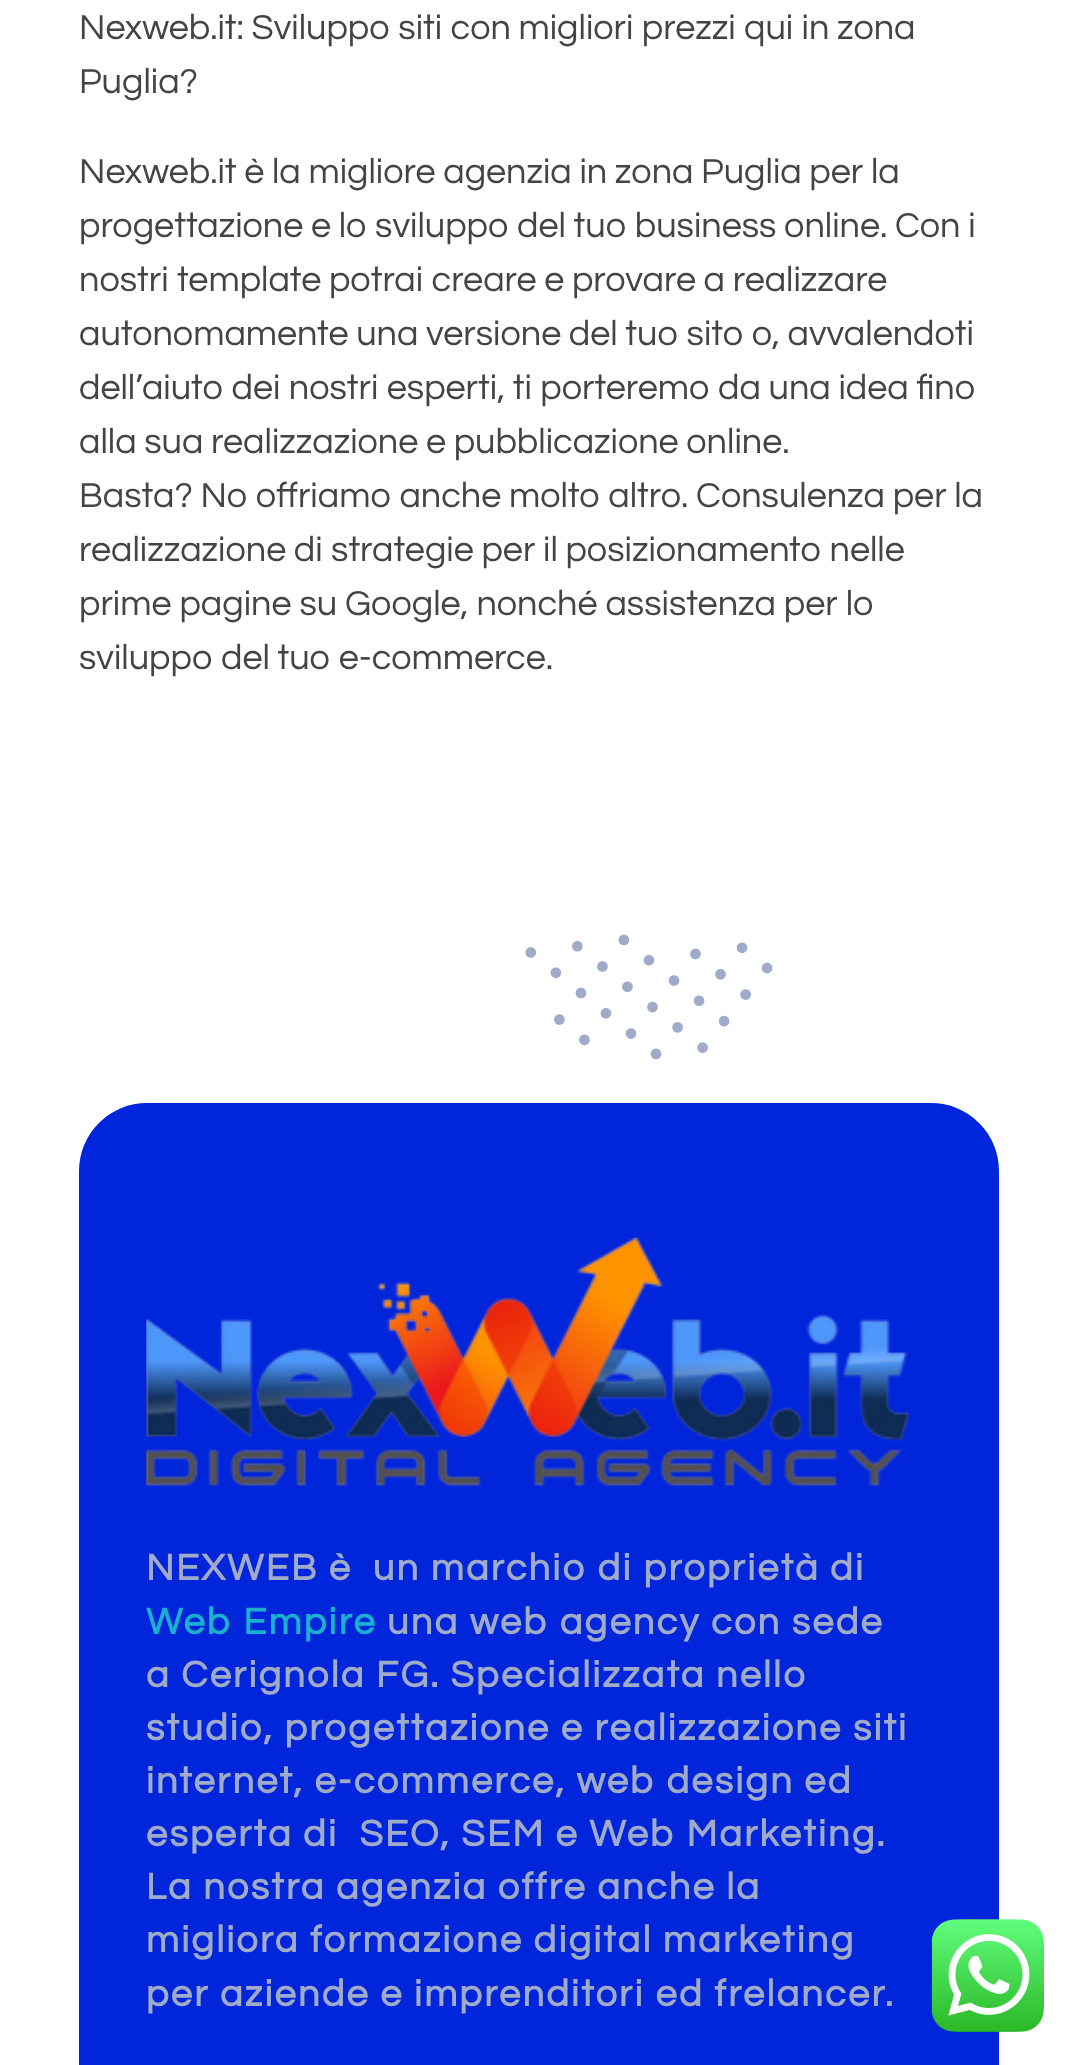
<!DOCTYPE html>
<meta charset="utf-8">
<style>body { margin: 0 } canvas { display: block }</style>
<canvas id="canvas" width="1077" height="2065"></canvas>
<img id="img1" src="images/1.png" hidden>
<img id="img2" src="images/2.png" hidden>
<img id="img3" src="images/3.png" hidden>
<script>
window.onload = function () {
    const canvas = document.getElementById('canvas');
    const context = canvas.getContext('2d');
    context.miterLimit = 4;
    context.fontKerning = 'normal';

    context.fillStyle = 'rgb(255, 255, 255)';
    context.fillRect(0, 0, 1077, 2065);
    context.fillStyle = 'rgb(0, 37, 219)';
    context.beginPath();
    context.roundRect(79, 1103, 920, 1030, 68);
    context.fill();
    context.drawImage(document.getElementById('img1'), 525, 934, 248, 126);
    context.drawImage(document.getElementById('img2'), 146, 1237, 763, 249);
    context.beginPath();
    context.roundRect(933, 1920, 76, 77, 38);
    context.strokeStyle = 'rgb(61, 61, 61)';
    context.lineWidth = 2;
    context.stroke();
    context.drawImage(document.getElementById('img3'), 932, 1919, 112, 113);
    context.font = '36px Questrial';
    context.fillStyle = 'rgb(68, 68, 68)';
    context.fillText('Nexweb.it: Sviluppo siti con migliori prezzi qui in zona', 79, 39);
    context.fillText('Puglia?', 79, 93);
    context.fillText('Nexweb.it è la migliore agenzia in zona Puglia per la', 79, 183);
    context.fillText('progettazione e lo sviluppo del tuo business online. Con i', 79, 237);
    context.fillText('nostri template potrai creare e provare a realizzare', 79, 291);
    context.fillText('autonomamente una versione del tuo sito o, avvalendoti', 79, 345);
    context.fillText('dell’aiuto dei nostri esperti, ti porteremo da una idea fino', 79, 399);
    context.fillText('alla sua realizzazione e pubblicazione online.', 79, 453);
    context.fillText('Basta? No offriamo anche molto altro. Consulenza per la', 79, 507);
    context.fillText('realizzazione di strategie per il posizionamento nelle', 79, 561);
    context.wordSpacing = '0.25px';
    context.fillText('prime pagine su Google, nonché assistenza per lo', 79, 615);
    context.wordSpacing = '0px';
    context.fillText('sviluppo del tuo e-commerce.', 79, 669);
    context.letterSpacing = '2.25px';
    context.font = 'bold 38px Questrial';
    context.fillStyle = 'rgb(160, 171, 201)';
    context.fillText('NEXWEB è  un marchio di proprietà di', 146, 1580);
    context.fillStyle = 'rgb(27, 176, 206)';
    context.fillText('Web Empire', 146, 1634);
    context.fillStyle = 'rgb(160, 171, 201)';
    context.fillText('una web agency con sede', 387, 1634);
    context.fillText('a Cerignola FG. Specializzata nello', 146, 1687);
    context.fillText('studio, progettazione e realizzazione siti', 146, 1740);
    context.fillText('internet, e-commerce, web design ed', 146, 1793);
    context.fillText('esperta di  SEO, SEM e Web Marketing.', 146, 1846);
    context.fillText('La nostra agenzia offre anche la', 146, 1899);
    context.fillText('migliora formazione digital marketing', 146, 1952);
    context.fillText('per aziende e imprenditori ed frelancer.', 146, 2006);
};
</script>
